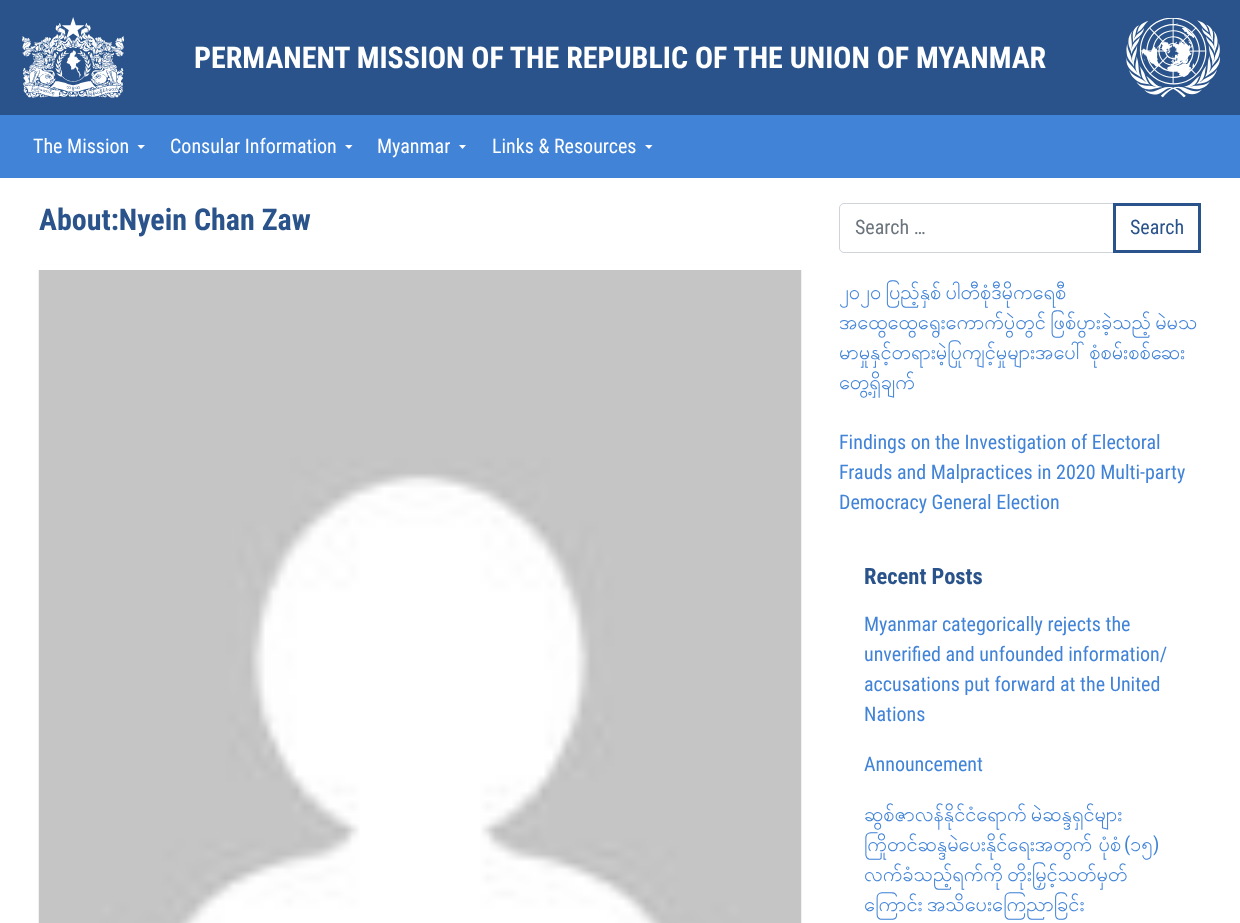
<!DOCTYPE html>
<meta charset="utf-8">
<style>body { margin: 0 } canvas { display: block }</style>
<canvas id="canvas" width="1240" height="923"></canvas>
<img id="img1" src="images/1.png" hidden>
<img id="img2" src="images/2.png" hidden>
<script>
window.onload = function () {
    const canvas = document.getElementById('canvas');
    const context = canvas.getContext('2d');
    context.miterLimit = 4;
    context.fontKerning = 'normal';

    context.fillStyle = 'rgb(255, 255, 255)';
    context.fillRect(0, 0, 1240, 923);
    context.fillStyle = 'rgb(41, 83, 138)';
    context.fillRect(0, 0, 1240, 115);
    context.drawImage(document.getElementById('img1'), 22, 17, 1198, 81);
    context.fillStyle = 'rgb(65, 131, 215)';
    context.fillRect(0, 115, 1240, 63);
    context.fillStyle = 'rgb(255, 255, 255)';
    context.beginPath();
    context.moveTo(137.5, 145);
    context.lineTo(145, 145);
    context.lineTo(141, 149);
    context.closePath();
    context.fill();
    context.beginPath();
    context.moveTo(345, 145);
    context.lineTo(352.5, 145);
    context.lineTo(349, 149);
    context.closePath();
    context.fill();
    context.beginPath();
    context.moveTo(459, 145);
    context.lineTo(466, 145);
    context.lineTo(462.5, 149);
    context.closePath();
    context.fill();
    context.beginPath();
    context.moveTo(645, 145);
    context.lineTo(652.5, 145);
    context.lineTo(649, 149);
    context.closePath();
    context.fill();
    context.drawImage(document.getElementById('img2'), 38, 270, 764, 653);
    context.beginPath();
    context.roundRect(839.5, 203.5, 274, 49, [4.5, 0, 0, 4.5]);
    context.strokeStyle = 'rgb(206, 212, 218)';
    context.stroke();
    context.strokeStyle = 'rgb(41, 83, 138)';
    context.lineWidth = 3;
    context.strokeRect(1114.5, 204.5, 85, 47);
    context.font = 'bold 30px Roboto Condensed';
    context.fillText('PERMANENT MISSION OF THE REPUBLIC OF THE UNION OF MYANMAR', 194, 68);
    context.font = '20px Roboto Condensed';
    context.fillText('The Mission', 33, 153);
    context.fillText('Consular Information', 170, 153);
    context.fillText('Myanmar', 377, 153);
    context.fillText('Links & Resources', 492, 153);
    context.font = 'bold 30px Roboto Condensed';
    context.fillStyle = 'rgb(41, 83, 138)';
    context.fillText('About:Nyein Chan Zaw', 39, 230);
    context.font = '20px Roboto Condensed';
    context.fillStyle = 'rgb(108, 117, 125)';
    context.fillText('Search …', 855, 234);
    context.fillStyle = 'rgb(41, 83, 138)';
    context.fillText('Search', 1130, 234);
    context.wordSpacing = '-3px';
    context.font = '20px Padauk';
    context.fillStyle = 'rgb(65, 131, 215)';
    context.fillText('၂၀၂၀ ပြည့်နှစ် ပါတီစုံဒီမိုကရေစီ', 839, 299);
    context.fillText('အထွေထွေရွေးကောက်ပွဲတွင် ဖြစ်ပွားခဲ့သည့် မဲမသ', 839, 329);
    context.fillText('မာမှုနှင့်တရားမဲ့ပြုကျင့်မှုများအပေါ် စုံစမ်းစစ်ဆေး', 839, 359);
    context.wordSpacing = '0px';
    context.fillText('တွေ့ရှိချက်', 839, 389);
    context.font = '20px Roboto Condensed';
    context.fillText('Findings on the Investigation of Electoral', 839, 449);
    context.fillText('Frauds and Malpractices in 2020 Multi-party', 839, 479);
    context.fillText('Democracy General Election', 839, 509);
    context.font = 'bold 22.5px Roboto Condensed';
    context.fillStyle = 'rgb(41, 83, 138)';
    context.fillText('Recent Posts', 864, 584);
    context.font = '20px Roboto Condensed';
    context.fillStyle = 'rgb(65, 131, 215)';
    context.fillText('Myanmar categorically rejects the', 864, 631);
    context.fillText('unverified and unfounded information/', 864, 661);
    context.fillText('accusations put forward at the United', 864, 691);
    context.fillText('Nations', 864, 721);
    context.fillText('Announcement', 864, 771);
    context.wordSpacing = '-3px';
    context.font = '20px Padauk';
    context.fillText('ဆွစ်ဇာလန်နိုင်ငံရောက် မဲဆန္ဒရှင်များ', 864, 821);
    context.wordSpacing = '-1px';
    context.fillText('ကြိုတင်ဆန္ဒမဲပေးနိုင်ရေးအတွက် ပုံစံ', 864, 851);
    context.wordSpacing = '0px';
    context.font = '20px Roboto Condensed';
    context.fillText('(', 1124, 851);
    context.font = '20px Padauk';
    context.fillText('၁၅', 1130, 851);
    context.font = '20px Roboto Condensed';
    context.fillText(')', 1153, 851);
    context.wordSpacing = '-3px';
    context.font = '20px Padauk';
    context.fillText('လက်ခံသည့်ရက်ကို တိုးမြှင့်သတ်မှတ်', 864, 881);
    context.fillText('ကြောင်း အသိပေးကြေညာခြင်း', 864, 911);
};
</script>
